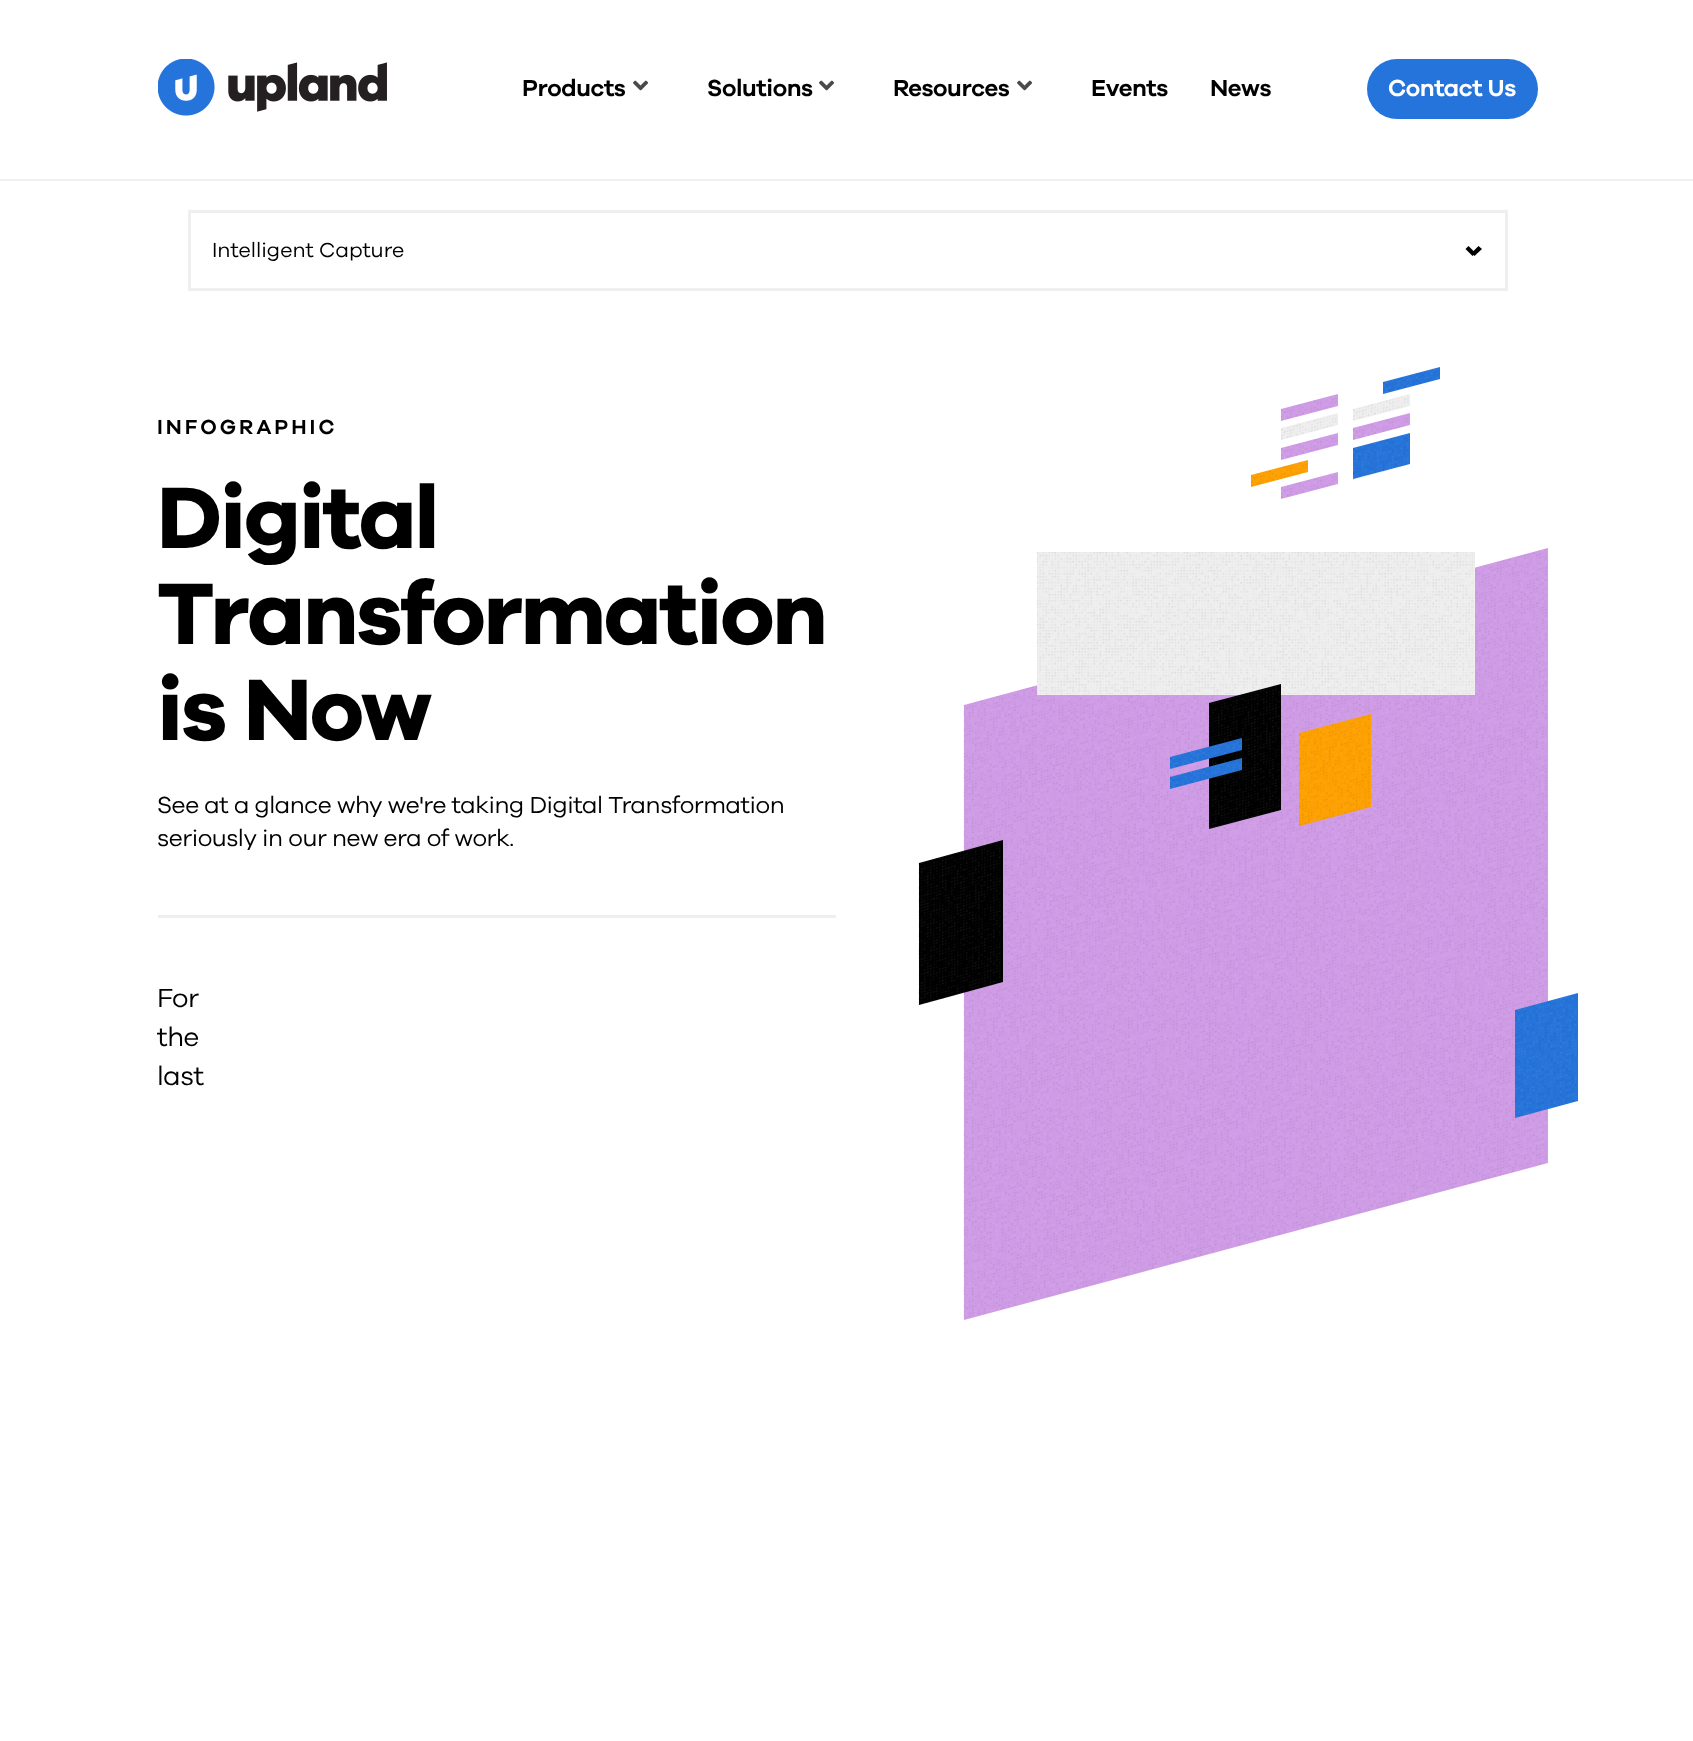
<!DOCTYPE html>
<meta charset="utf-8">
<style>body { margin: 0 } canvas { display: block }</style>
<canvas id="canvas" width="1693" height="1741"></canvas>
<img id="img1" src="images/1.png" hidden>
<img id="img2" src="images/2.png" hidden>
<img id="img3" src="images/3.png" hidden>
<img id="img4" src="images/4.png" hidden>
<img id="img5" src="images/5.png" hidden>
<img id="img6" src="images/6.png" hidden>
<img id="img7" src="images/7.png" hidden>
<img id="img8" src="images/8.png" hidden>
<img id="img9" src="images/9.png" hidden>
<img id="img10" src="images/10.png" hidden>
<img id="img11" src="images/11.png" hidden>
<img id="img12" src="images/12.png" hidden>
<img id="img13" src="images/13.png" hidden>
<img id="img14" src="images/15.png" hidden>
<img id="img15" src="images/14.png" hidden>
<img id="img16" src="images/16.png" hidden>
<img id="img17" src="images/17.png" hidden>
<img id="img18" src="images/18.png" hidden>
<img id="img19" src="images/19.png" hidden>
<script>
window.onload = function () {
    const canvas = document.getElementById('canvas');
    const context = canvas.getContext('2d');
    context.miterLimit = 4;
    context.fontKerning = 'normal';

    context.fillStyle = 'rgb(255, 255, 255)';
    context.fillRect(0, 0, 1693, 1741);
    context.drawImage(document.getElementById('img1'), 158, 59, 229, 57);
    context.drawImage(document.getElementById('img2'), 633, 80, 15, 11);
    context.drawImage(document.getElementById('img2'), 819, 80, 15, 11);
    context.drawImage(document.getElementById('img2'), 1017, 80, 15, 11);
    context.fillStyle = 'rgb(37, 116, 219)';
    context.beginPath();
    context.roundRect(1367, 59, 171, 60, 30);
    context.fill();
    context.fillStyle = 'rgb(239, 239, 239)';
    context.fillRect(0, 179, 1693, 2);
    context.fillStyle = 'rgb(0, 0, 0)';
    context.beginPath();
    context.moveTo(1471.5, 253);
    context.lineTo(1478.5, 246);
    context.lineTo(1482, 249);
    context.lineTo(1474.5, 256);
    context.closePath();
    context.fill();
    context.beginPath();
    context.moveTo(1465.5, 249);
    context.lineTo(1468.5, 246);
    context.lineTo(1475.5, 253);
    context.lineTo(1472.5, 256);
    context.closePath();
    context.fill();
    context.strokeStyle = 'rgb(239, 239, 239)';
    context.lineWidth = 3;
    context.strokeRect(189.5, 211.5, 1317, 78);
    context.fillStyle = 'rgb(239, 239, 239)';
    context.fillRect(158, 915, 678, 3);
    context.fillStyle = 'rgb(37, 116, 219)';
    context.beginPath();
    context.moveTo(1383, 382);
    context.lineTo(1440, 367);
    context.lineTo(1440, 379);
    context.lineTo(1383, 394);
    context.closePath();
    context.fill();
    context.drawImage(document.getElementById('img3'), 1383, 368, 56, 25);
    context.fillStyle = 'rgb(208, 156, 231)';
    context.beginPath();
    context.moveTo(1281, 409);
    context.lineTo(1338, 394);
    context.lineTo(1338, 406);
    context.lineTo(1281, 421);
    context.closePath();
    context.fill();
    context.drawImage(document.getElementById('img4'), 1281, 395, 56, 25);
    context.fillStyle = 'rgb(239, 239, 239)';
    context.beginPath();
    context.moveTo(1353, 409);
    context.lineTo(1410, 394);
    context.lineTo(1410, 406);
    context.lineTo(1353, 421);
    context.closePath();
    context.fill();
    context.drawImage(document.getElementById('img5'), 1353, 395, 56, 25);
    context.beginPath();
    context.moveTo(1281, 428);
    context.lineTo(1338, 413);
    context.lineTo(1338, 425);
    context.lineTo(1281, 440);
    context.closePath();
    context.fill();
    context.drawImage(document.getElementById('img6'), 1281, 415, 56, 25);
    context.fillStyle = 'rgb(208, 156, 231)';
    context.beginPath();
    context.moveTo(1353, 428);
    context.lineTo(1410, 413);
    context.lineTo(1410, 425);
    context.lineTo(1353, 440);
    context.closePath();
    context.fill();
    context.drawImage(document.getElementById('img7'), 1353, 415, 56, 25);
    context.fillStyle = 'rgb(255, 161, 0)';
    context.beginPath();
    context.moveTo(1251, 475);
    context.lineTo(1308, 460);
    context.lineTo(1308, 472);
    context.lineTo(1251, 487);
    context.closePath();
    context.fill();
    context.drawImage(document.getElementById('img8'), 1251, 461, 56, 25);
    context.fillStyle = 'rgb(208, 156, 231)';
    context.beginPath();
    context.moveTo(1281, 448);
    context.lineTo(1338, 433);
    context.lineTo(1338, 445);
    context.lineTo(1281, 460);
    context.closePath();
    context.fill();
    context.drawImage(document.getElementById('img9'), 1281, 434, 56, 25);
    context.fillStyle = 'rgb(37, 116, 219)';
    context.beginPath();
    context.moveTo(1353, 448);
    context.lineTo(1410, 433);
    context.lineTo(1410, 464);
    context.lineTo(1353, 479);
    context.closePath();
    context.fill();
    context.drawImage(document.getElementById('img10'), 1353, 434, 56, 46);
    context.fillStyle = 'rgb(208, 156, 231)';
    context.beginPath();
    context.moveTo(1281, 487);
    context.lineTo(1338, 472);
    context.lineTo(1338, 484);
    context.lineTo(1281, 499);
    context.closePath();
    context.fill();
    context.drawImage(document.getElementById('img11'), 1281, 473, 56, 25);
    context.beginPath();
    context.moveTo(964, 705);
    context.lineTo(1548, 548);
    context.lineTo(1548, 1163);
    context.lineTo(964, 1320);
    context.closePath();
    context.fill();
    context.drawImage(document.getElementById('img12'), 963, 549, 584, 769);
    context.fillStyle = 'rgb(239, 239, 239)';
    context.fillRect(1037, 552, 438, 143);
    context.drawImage(document.getElementById('img13'), 1036, 552, 439, 142);
    context.fillStyle = 'rgb(0, 0, 0)';
    context.beginPath();
    context.moveTo(1209, 703);
    context.lineTo(1281, 684);
    context.lineTo(1281, 810);
    context.lineTo(1209, 829);
    context.closePath();
    context.fill();
    context.drawImage(document.getElementById('img14'), 1209, 686, 71, 143);
    context.fillStyle = 'rgb(37, 116, 219)';
    context.beginPath();
    context.moveTo(1170, 757);
    context.lineTo(1242, 738);
    context.lineTo(1242, 750);
    context.lineTo(1170, 769);
    context.closePath();
    context.fill();
    context.drawImage(document.getElementById('img15'), 1170, 739, 71, 30);
    context.fillStyle = 'rgb(255, 161, 0)';
    context.beginPath();
    context.moveTo(1299, 733);
    context.lineTo(1371, 714);
    context.lineTo(1371, 807);
    context.lineTo(1299, 826);
    context.closePath();
    context.fill();
    context.drawImage(document.getElementById('img16'), 1299, 715, 71, 111);
    context.fillStyle = 'rgb(37, 116, 219)';
    context.beginPath();
    context.moveTo(1170, 777);
    context.lineTo(1242, 758);
    context.lineTo(1242, 770);
    context.lineTo(1170, 789);
    context.closePath();
    context.fill();
    context.drawImage(document.getElementById('img17'), 1170, 759, 71, 29);
    context.fillStyle = 'rgb(0, 0, 0)';
    context.beginPath();
    context.moveTo(919, 863);
    context.lineTo(1003, 840);
    context.lineTo(1003, 982);
    context.lineTo(919, 1005);
    context.closePath();
    context.fill();
    context.drawImage(document.getElementById('img18'), 918, 842, 83, 164);
    context.fillStyle = 'rgb(37, 116, 219)';
    context.beginPath();
    context.moveTo(1515, 1010);
    context.lineTo(1578, 993);
    context.lineTo(1578, 1101);
    context.lineTo(1515, 1118);
    context.closePath();
    context.fill();
    context.drawImage(document.getElementById('img19'), 1515, 994, 62, 123);
    context.letterSpacing = '-0.45px';
    context.font = '600 24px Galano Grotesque';
    context.fillStyle = 'rgb(0, 0, 0)';
    context.fillText('Products', 522, 96);
    context.fillText('Solutions', 707, 96);
    context.fillText('Resources', 893, 96);
    context.fillText('Events', 1091, 96);
    context.fillText('News', 1210, 96);
    context.fillStyle = 'rgb(255, 255, 255)';
    context.fillText('Contact Us', 1388, 96);
    context.letterSpacing = '0px';
    context.font = '21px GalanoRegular';
    context.fillStyle = 'rgb(0, 0, 0)';
    context.fillText('Intelligent Capture', 212, 257);
    context.letterSpacing = '3px';
    context.font = '600 21px Galano Grotesque';
    context.fillText('INFOGRAPHIC', 157, 434);
    context.letterSpacing = '-2.25px';
    context.font = 'bold 90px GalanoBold';
    context.fillText('Digital', 157, 548);
    context.fillText('Transformation', 157, 644);
    context.fillText('is Now', 157, 740);
    context.letterSpacing = '-0.45px';
    context.font = '24px GalanoRegular';
    context.fillText('See at a glance why we\'re taking Digital Transformation', 157, 813);
    context.fillText('seriously in our new era of work.', 157, 846);
    context.font = '27px GalanoRegular';
    context.fillText('For', 157, 1007);
    context.fillText('the', 157, 1046);
    context.fillText('last', 157, 1085);
};
</script>
